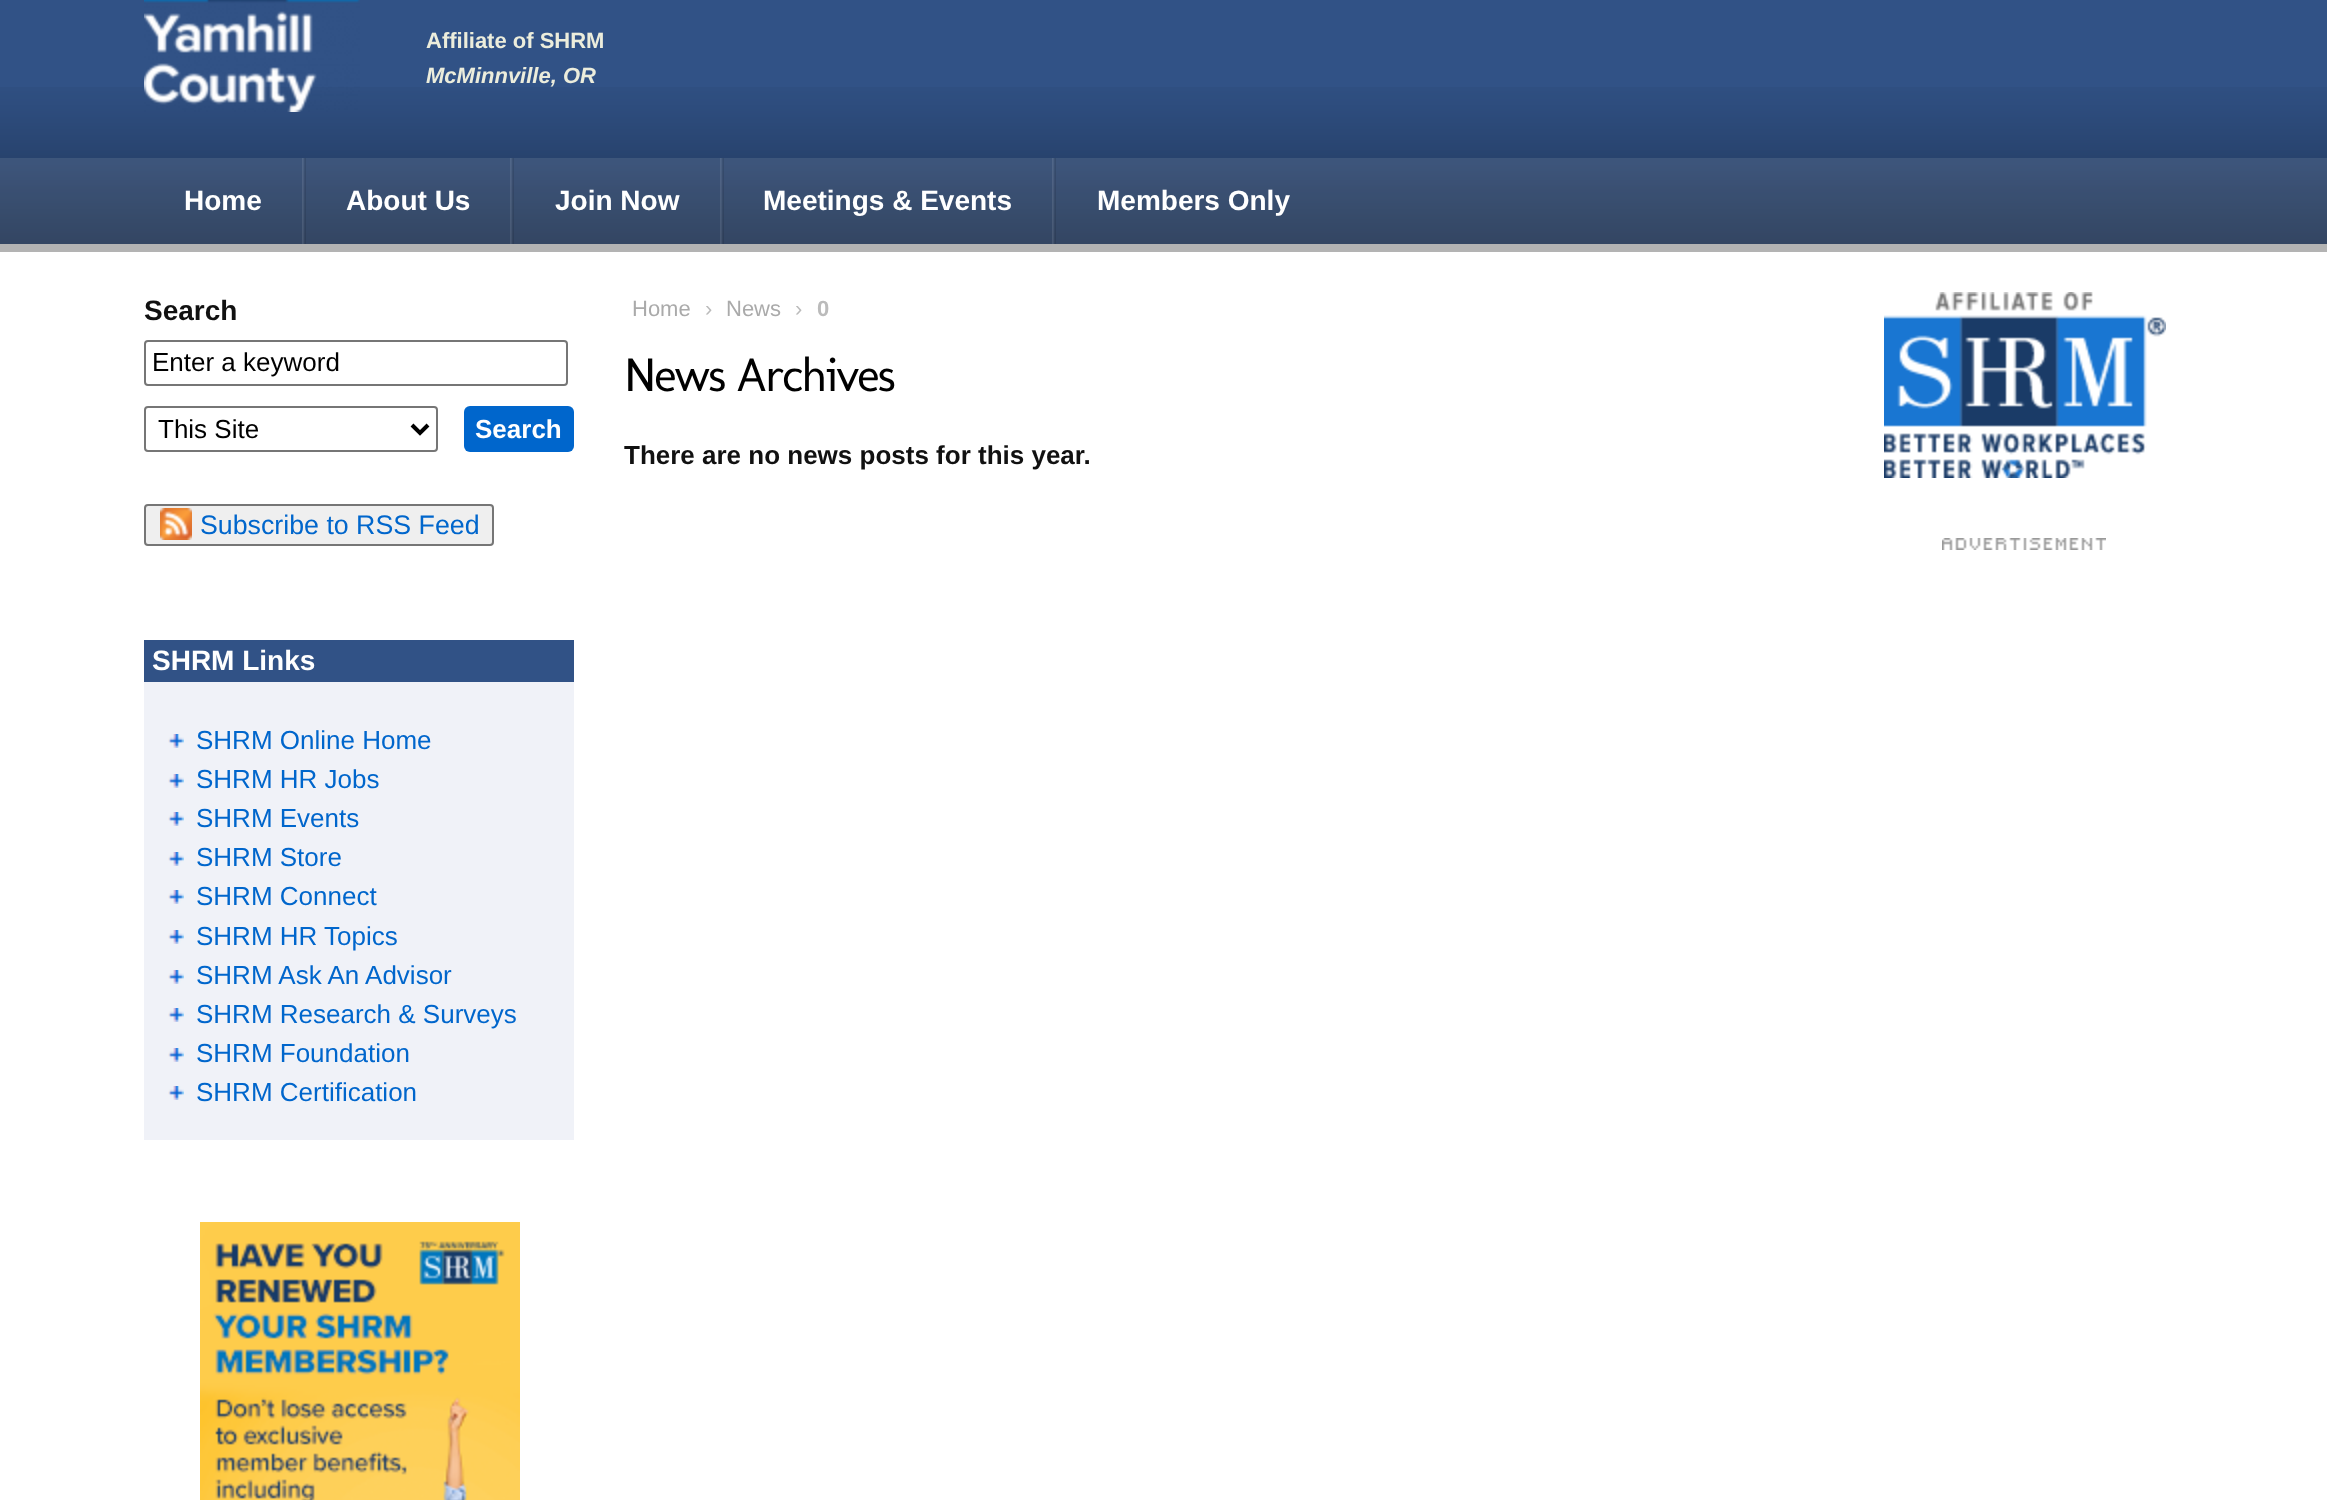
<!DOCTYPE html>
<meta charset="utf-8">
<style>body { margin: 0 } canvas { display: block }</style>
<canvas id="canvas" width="2327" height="1500"></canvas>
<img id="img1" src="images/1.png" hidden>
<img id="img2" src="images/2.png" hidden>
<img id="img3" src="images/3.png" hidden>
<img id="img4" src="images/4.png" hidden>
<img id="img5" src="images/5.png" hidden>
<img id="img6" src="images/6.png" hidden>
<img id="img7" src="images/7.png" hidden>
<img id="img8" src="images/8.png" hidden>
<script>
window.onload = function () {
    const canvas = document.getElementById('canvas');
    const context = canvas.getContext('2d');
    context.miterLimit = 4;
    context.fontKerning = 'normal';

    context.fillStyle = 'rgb(255, 255, 255)';
    context.fillRect(0, 0, 2327, 1500);
    context.fillStyle = 'rgb(49, 82, 134)';
    context.fillRect(0, 0, 2327, 244);
    context.drawImage(document.getElementById('img1'), 0, 87, 2327, 157);
    context.fillStyle = 'rgb(179, 179, 179)';
    context.fillRect(0, 244, 2327, 8);
    context.drawImage(document.getElementById('img2'), 144, 0, 216, 112);
    context.fillStyle = 'rgba(255, 255, 255, 0.1)';
    context.fillRect(0, 158, 2327, 86);
    context.drawImage(document.getElementById('img3'), 302, 158, 4, 86);
    context.drawImage(document.getElementById('img3'), 510, 158, 4, 86);
    context.drawImage(document.getElementById('img3'), 720, 158, 4, 86);
    context.drawImage(document.getElementById('img3'), 1052, 158, 4, 86);
    context.beginPath();
    context.roundRect(145, 341, 422, 44, 3);
    context.strokeStyle = 'rgb(118, 118, 118)';
    context.lineWidth = 2;
    context.stroke();
    context.fillStyle = 'rgb(0, 102, 204)';
    context.beginPath();
    context.roundRect(464, 406, 110, 46, 6);
    context.fill();
    context.beginPath();
    context.roundRect(145, 407, 292, 44, 3);
    context.stroke();
    context.beginPath();
    context.moveTo(412, 425);
    context.lineTo(420, 433);
    context.lineTo(428, 425);
    context.strokeStyle = 'rgb(0, 0, 0)';
    context.lineWidth = 4;
    context.stroke();
    context.fillStyle = 'rgb(239, 239, 239)';
    context.beginPath();
    context.roundRect(145, 505, 348, 40, 3);
    context.fill();
    context.strokeStyle = 'rgb(118, 118, 118)';
    context.lineWidth = 2;
    context.stroke();
    context.drawImage(document.getElementById('img4'), 160, 508, 32, 32);
    context.fillStyle = 'rgb(240, 242, 248)';
    context.fillRect(144, 682, 430, 458);
    context.fillStyle = 'rgb(49, 82, 134)';
    context.fillRect(144, 640, 430, 42);
    context.drawImage(document.getElementById('img5'), 168, 734, 16, 14);
    context.drawImage(document.getElementById('img5'), 168, 774, 16, 14);
    context.drawImage(document.getElementById('img5'), 168, 812, 16, 14);
    context.drawImage(document.getElementById('img5'), 168, 852, 16, 14);
    context.drawImage(document.getElementById('img5'), 168, 890, 16, 14);
    context.drawImage(document.getElementById('img5'), 168, 930, 16, 14);
    context.drawImage(document.getElementById('img5'), 168, 970, 16, 14);
    context.drawImage(document.getElementById('img5'), 168, 1008, 16, 14);
    context.drawImage(document.getElementById('img5'), 168, 1048, 16, 14);
    context.drawImage(document.getElementById('img5'), 168, 1086, 16, 14);
    context.drawImage(document.getElementById('img6'), 200, 1222, 320, 278);
    context.drawImage(document.getElementById('img7'), 1884, 292, 282, 186);
    context.drawImage(document.getElementById('img8'), 1942, 538, 164, 12);
    context.font = 'bold 22px Liberation Sans';
    context.fillStyle = 'rgb(236, 237, 220)';
    context.fillText('Affiliate of SHRM', 426, 48);
    context.font = 'italic bold 22px Liberation Sans';
    context.fillText('McMinnville, OR', 426, 83);
    context.font = 'bold 28px Liberation Sans';
    context.fillStyle = 'rgb(255, 255, 255)';
    context.fillText('Home', 184, 210);
    context.fillText('About Us', 346, 210);
    context.fillText('Join Now', 555, 210);
    context.fillText('Meetings & Events', 763, 210);
    context.fillText('Members Only', 1097, 210);
    context.fillStyle = 'rgb(17, 17, 17)';
    context.fillText('Search', 144, 320);
    context.font = '26px Liberation Sans';
    context.fillStyle = 'rgb(0, 0, 0)';
    context.fillText('Enter a keyword', 152, 371);
    context.font = 'bold 26px Liberation Sans';
    context.fillStyle = 'rgb(255, 255, 255)';
    context.fillText('Search', 475, 438);
    context.font = '26px Liberation Sans';
    context.fillStyle = 'rgb(0, 0, 0)';
    context.fillText('This Site', 158, 438);
    context.font = '26.75px Liberation Sans';
    context.fillStyle = 'rgb(0, 102, 204)';
    context.fillText('Subscribe to RSS Feed', 200, 534);
    context.font = 'bold 28px Liberation Sans';
    context.fillStyle = 'rgb(255, 255, 255)';
    context.fillText('SHRM Links', 152, 670);
    context.font = '26px Liberation Sans';
    context.fillStyle = 'rgb(0, 102, 204)';
    context.fillText('SHRM Online Home', 196, 749);
    context.fillText('SHRM HR Jobs', 196, 788);
    context.fillText('SHRM Events', 196, 827);
    context.fillText('SHRM Store', 196, 866);
    context.fillText('SHRM Connect', 196, 905);
    context.fillText('SHRM HR Topics', 196, 945);
    context.fillText('SHRM Ask An Advisor', 196, 984);
    context.fillText('SHRM Research & Surveys', 196, 1023);
    context.fillText('SHRM Foundation', 196, 1062);
    context.fillText('SHRM Certification', 196, 1101);
    context.font = '22px Liberation Sans';
    context.fillStyle = 'rgb(170, 170, 170)';
    context.fillText('Home', 632, 316);
    context.fillStyle = 'rgb(187, 187, 187)';
    context.fillText('›', 705, 316);
    context.fillStyle = 'rgb(170, 170, 170)';
    context.fillText('News', 726, 316);
    context.fillStyle = 'rgb(187, 187, 187)';
    context.fillText('›', 795, 316);
    context.font = 'bold 22px Liberation Sans';
    context.fillText('0', 817, 316);
    context.letterSpacing = '-2px';
    context.font = '48px Molengo';
    context.fillStyle = 'rgb(0, 0, 0)';
    context.fillText('News Archives', 624, 391);
    context.letterSpacing = '0px';
    context.font = 'bold 26px Liberation Sans';
    context.fillStyle = 'rgb(17, 17, 17)';
    context.fillText('There are no news posts for this year.', 624, 464);
};
</script>
